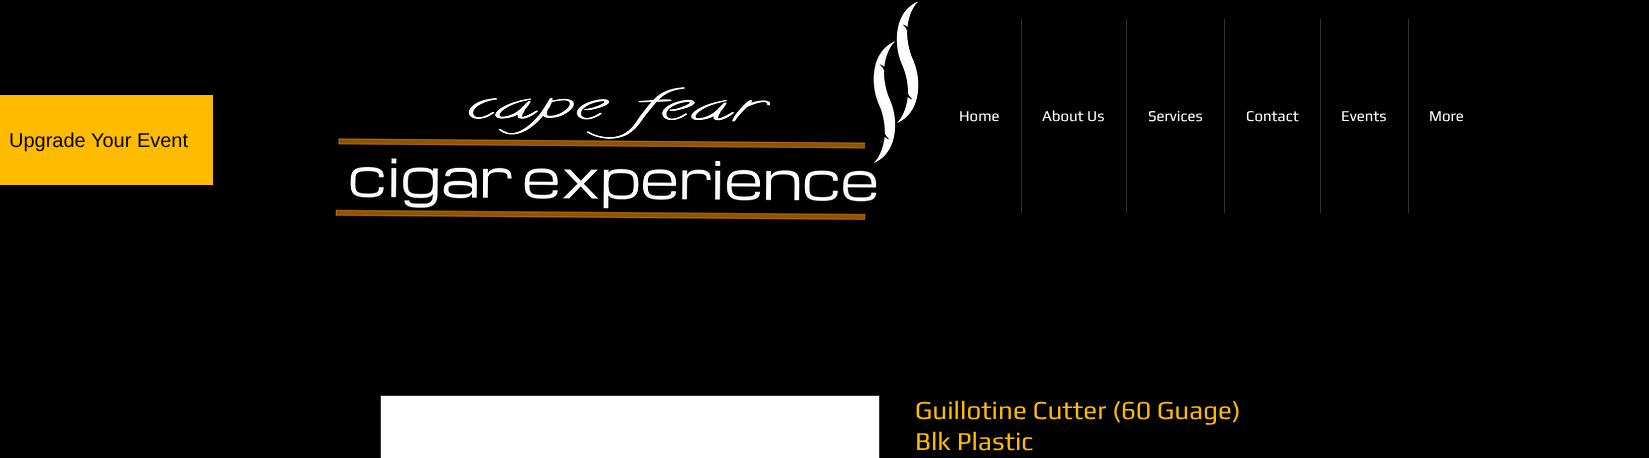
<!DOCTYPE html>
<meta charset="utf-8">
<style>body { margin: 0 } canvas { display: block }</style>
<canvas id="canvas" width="1649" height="458"></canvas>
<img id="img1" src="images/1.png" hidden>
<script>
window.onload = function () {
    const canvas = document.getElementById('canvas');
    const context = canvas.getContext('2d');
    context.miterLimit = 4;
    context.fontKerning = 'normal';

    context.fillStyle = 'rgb(0, 0, 0)';
    context.fillRect(0, 0, 1649, 458);
    context.drawImage(document.getElementById('img1'), 335, 2, 584, 219);
    context.fillStyle = 'rgb(51, 51, 51)';
    context.fillRect(1021, 19, 1, 194);
    context.fillRect(1126, 19, 1, 194);
    context.fillRect(1224, 19, 1, 194);
    context.fillRect(1320, 19, 1, 194);
    context.fillRect(1408, 19, 1, 194);
    context.fillStyle = 'rgb(255, 187, 0)';
    context.fillRect(0, 95, 213, 90);
    context.strokeStyle = 'rgb(51, 51, 51)';
    context.strokeRect(380.5, 395.5, 499, 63);
    context.fillStyle = 'rgb(255, 255, 255)';
    context.fillRect(381, 396, 498, 62);
    context.font = '15px Play';
    context.fillText('Home', 959, 121);
    context.fillText('About Us', 1042, 121);
    context.fillText('Services', 1148, 121);
    context.fillText('Contact', 1246, 121);
    context.fillText('Events', 1341, 121);
    context.fillText('More', 1429, 121);
    context.font = '20px Liberation Sans';
    context.fillStyle = 'rgb(0, 0, 0)';
    context.fillText('Upgrade Your Event', 9, 147);
    context.font = '26px Play';
    context.fillStyle = 'rgb(255, 187, 0)';
    context.fillText('Guillotine Cutter (60 Guage)', 915, 419);
    context.fillText('Blk Plastic', 915, 450);
};
</script>
